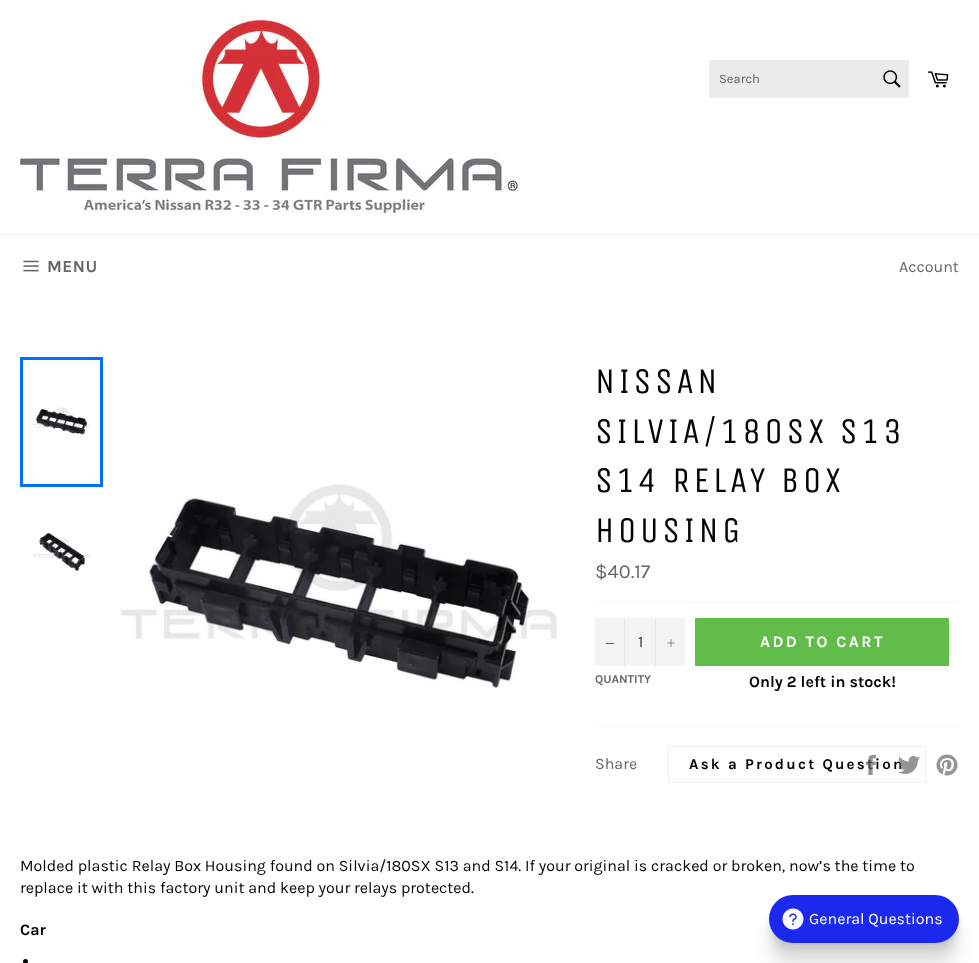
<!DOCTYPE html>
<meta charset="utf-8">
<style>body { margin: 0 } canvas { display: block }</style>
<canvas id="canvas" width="979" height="963"></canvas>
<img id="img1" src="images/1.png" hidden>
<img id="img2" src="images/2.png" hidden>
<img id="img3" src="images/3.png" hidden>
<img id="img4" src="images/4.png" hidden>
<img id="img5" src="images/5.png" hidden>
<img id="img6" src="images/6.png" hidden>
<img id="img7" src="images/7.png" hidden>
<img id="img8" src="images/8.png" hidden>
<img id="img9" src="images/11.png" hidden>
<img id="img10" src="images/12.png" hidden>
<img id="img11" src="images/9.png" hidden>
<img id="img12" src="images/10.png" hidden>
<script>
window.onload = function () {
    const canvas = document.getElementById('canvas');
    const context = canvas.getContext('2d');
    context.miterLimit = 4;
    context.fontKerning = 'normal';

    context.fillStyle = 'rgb(255, 255, 255)';
    context.fillRect(0, 0, 979, 963);
    context.drawImage(document.getElementById('img1'), 20, 20, 500, 194);
    context.fillStyle = 'rgb(235, 235, 235)';
    context.fillRect(709, 60, 200, 38);
    context.drawImage(document.getElementById('img2'), 883, 70, 18, 18);
    context.drawImage(document.getElementById('img3'), 927, 71, 22, 17);
    context.fillStyle = 'rgb(242, 242, 242)';
    context.fillRect(0, 234, 979, 1);
    context.drawImage(document.getElementById('img4'), 23, 260, 16, 12);
    context.drawImage(document.getElementById('img5'), 32, 407, 59, 28);
    context.strokeStyle = 'rgb(0, 110, 255)';
    context.lineWidth = 3;
    context.strokeRect(21.5, 358.5, 80, 127);
    context.drawImage(document.getElementById('img6'), 32, 533, 59, 38);
    context.drawImage(document.getElementById('img7'), 120, 483, 438, 205);
    context.fillStyle = 'rgb(247, 247, 247)';
    context.fillRect(595, 602, 364, 1);
    context.fillStyle = 'rgb(244, 244, 244)';
    context.fillRect(595, 618, 90, 48);
    context.fillStyle = 'rgb(231, 231, 231)';
    context.fillRect(624, 618, 1, 48);
    context.fillStyle = 'rgb(102, 102, 102)';
    context.fillRect(606, 643, 8, 1);
    context.fillStyle = 'rgb(231, 231, 231)';
    context.fillRect(655, 618, 1, 48);
    context.drawImage(document.getElementById('img8'), 667, 639, 8, 8);
    context.fillStyle = 'rgb(98, 188, 74)';
    context.fillRect(695, 618, 254, 48);
    context.fillStyle = 'rgb(247, 247, 247)';
    context.fillRect(595, 725, 364, 1);
    context.strokeStyle = 'rgb(239, 239, 239)';
    context.lineWidth = 1;
    context.strokeRect(668.5, 746.5, 257, 36);
    context.drawImage(document.getElementById('img9'), 936, 754, 22, 22);
    context.fillStyle = 'rgb(3, 3, 3)';
    context.beginPath();
    context.arc(25.5, 961.5, 2.5, 0, 2 * Math.PI);
    context.fill();
    context.fillStyle = 'rgba(0, 0, 0, 0.1)';
    context.filter = 'blur(10px)';
    context.beginPath();
    context.roundRect(769, 920, 190, 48, 24);
    context.fill();
    context.filter = 'none';
    context.fillStyle = 'rgba(0, 0, 0, 0.06)';
    context.filter = 'blur(5px)';
    context.beginPath();
    context.roundRect(769, 908, 190, 48, 24);
    context.fill();
    context.filter = 'none';
    context.filter = 'blur(2px)';
    context.beginPath();
    context.roundRect(769, 901, 190, 48, 24);
    context.fill();
    context.filter = 'none';
    context.fillStyle = 'rgba(0, 0, 0, 0.04)';
    context.filter = 'blur(0.5px)';
    context.beginPath();
    context.roundRect(769, 897, 190, 48, 24);
    context.fill();
    context.filter = 'none';
    context.fillStyle = 'rgb(27, 41, 238)';
    context.beginPath();
    context.roundRect(769, 895, 190, 48, 24);
    context.fill();
    context.drawImage(document.getElementById('img10'), 782, 908, 22, 22);
    context.font = '13px Karla';
    context.fillStyle = 'rgb(94, 94, 94)';
    context.fillText('Search', 719, 83);
    context.letterSpacing = '0.5px';
    context.font = 'bold 17px Karla';
    context.fillStyle = 'rgb(102, 102, 102)';
    context.fillText('MENU', 47, 272);
    context.letterSpacing = '0px';
    context.font = '16px Karla';
    context.fillText('Account', 899, 272);
    context.letterSpacing = '3.6px';
    context.font = '36px Unica One';
    context.fillStyle = 'rgb(3, 3, 3)';
    context.fillText('NISSAN', 595, 393);
    context.fillText('SILVIA/180SX S13', 595, 443);
    context.fillText('S14 RELAY BOX', 595, 492);
    context.fillText('HOUSING', 595, 542);
    context.letterSpacing = '0px';
    context.font = '20px Karla';
    context.fillStyle = 'rgb(102, 102, 102)';
    context.fillText('$40.17', 595, 578);
    context.font = '16px Karla';
    context.fillStyle = 'rgb(51, 51, 51)';
    context.fillText('1', 638, 647);
    context.font = 'bold 12px Karla';
    context.fillStyle = 'rgb(102, 102, 102)';
    context.fillText('QUANTITY', 595, 683);
    context.letterSpacing = '2.4px';
    context.font = 'bold 16px Karla';
    context.fillStyle = 'rgb(255, 255, 255)';
    context.fillText('ADD TO CART', 760, 647);
    context.letterSpacing = '0px';
    context.fillStyle = 'rgb(3, 3, 3)';
    context.fillText('Only 2 left in stock!', 749, 687);
    context.font = '16px Karla';
    context.fillStyle = 'rgb(102, 102, 102)';
    context.fillText('Share', 595, 769);
    context.letterSpacing = '2.25px';
    context.font = 'bold 15px Karla';
    context.fillStyle = 'rgb(3, 3, 3)';
    context.fillText('Ask a Product Question', 689, 769);
    context.drawImage(document.getElementById('img11'), 866, 755, 10, 20);
    context.drawImage(document.getElementById('img12'), 898, 756, 22, 18);
    context.letterSpacing = '0px';
    context.font = '16px Karla';
    context.fillText('Molded plastic Relay Box Housing found on Silvia/180SX S13 and S14. If your original is cracked or broken, now’s the time to', 20, 871);
    context.fillText('replace it with this factory unit and keep your relays protected.', 20, 893);
    context.font = 'bold 16px Karla';
    context.fillText('Car', 20, 935);
    context.font = '16px Karla';
    context.fillStyle = 'rgb(255, 255, 255)';
    context.fillText('General Questions', 809, 924);
};
</script>
